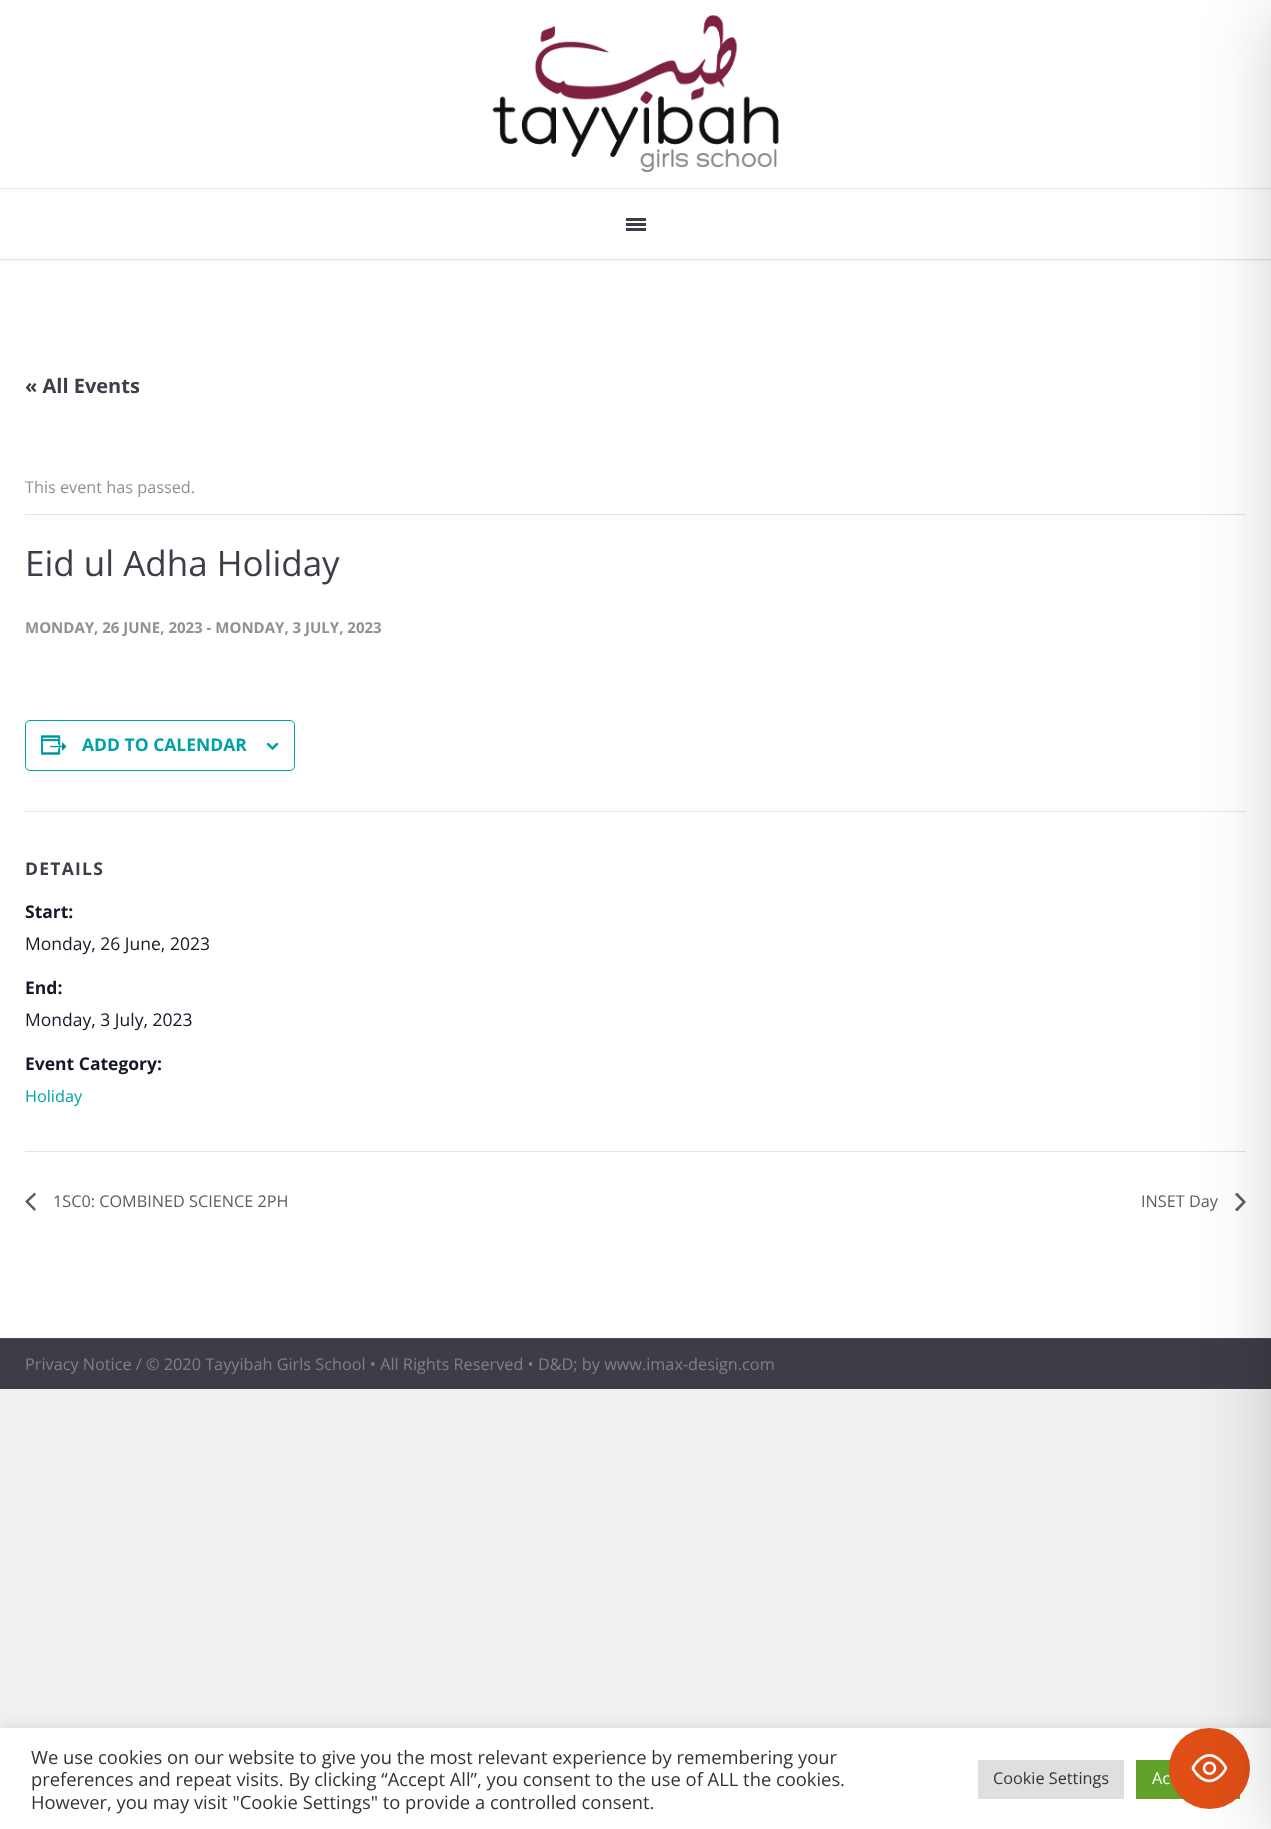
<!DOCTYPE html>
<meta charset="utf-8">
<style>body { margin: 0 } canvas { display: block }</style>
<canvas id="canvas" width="1271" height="1829"></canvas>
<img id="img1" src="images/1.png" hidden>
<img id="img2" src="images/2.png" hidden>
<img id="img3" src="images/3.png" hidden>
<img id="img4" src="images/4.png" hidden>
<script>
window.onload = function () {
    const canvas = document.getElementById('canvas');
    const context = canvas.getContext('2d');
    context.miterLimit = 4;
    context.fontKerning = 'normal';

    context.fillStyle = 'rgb(240, 240, 240)';
    context.fillRect(0, 0, 1271, 1829);
    context.fillStyle = 'rgb(255, 255, 255)';
    context.fillRect(0, 0, 1271, 1338);
    context.save();
    context.beginPath();
    context.rect(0, 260, 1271, 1);
    context.clip();
    context.fillStyle = 'rgba(0, 0, 0, 0.05)';
    context.filter = 'blur(0.5px)';
    context.beginPath();
    context.rect(0, 1, 1271, 260);
    context.fill();
    context.filter = 'none';
    context.restore();
    context.drawImage(document.getElementById('img1'), 492, 14, 287, 159);
    context.fillStyle = 'rgb(228, 228, 228)';
    context.fillRect(0, 188, 1271, 1);
    context.fillRect(0, 259, 1271, 1);
    context.fillStyle = 'rgb(61, 61, 71)';
    context.fillRect(626, 218, 20, 3);
    context.fillRect(626, 228, 20, 3);
    context.fillRect(626, 223, 20, 3);
    context.fillStyle = 'rgb(228, 228, 228)';
    context.fillRect(25, 514, 1221, 1);
    context.beginPath();
    context.roundRect(25.5, 720.5, 269, 50, 4.5);
    context.strokeStyle = 'rgb(1, 162, 166)';
    context.stroke();
    context.drawImage(document.getElementById('img2'), 41, 735, 26, 20);
    context.drawImage(document.getElementById('img3'), 266, 743, 13, 7);
    context.fillRect(25, 811, 1221, 1);
    context.fillRect(25, 1151, 1221, 1);
    context.fillStyle = 'rgb(93, 93, 93)';
    context.beginPath();
    context.moveTo(36, 1209);
    context.lineTo(34.5, 1211);
    context.lineTo(25, 1201.5);
    context.lineTo(34.5, 1192.5);
    context.lineTo(36, 1194.5);
    context.lineTo(28.5, 1201.5);
    context.closePath();
    context.fill();
    context.save();
    context.beginPath();
    context.rect(1235, 1193, 11, 18);
    context.clip();
    context.beginPath();
    context.moveTo(1235, 1194.5);
    context.lineTo(1237, 1192.5);
    context.lineTo(1246, 1202);
    context.lineTo(1237, 1211.5);
    context.lineTo(1235, 1209.5);
    context.lineTo(1242.5, 1202);
    context.closePath();
    context.fill();
    context.restore();
    context.fillStyle = 'rgb(61, 61, 71)';
    context.fillRect(0, 1339, 1271, 50);
    context.fillStyle = 'rgb(75, 75, 84)';
    context.fillRect(0, 1338, 1271, 1);
    context.fillStyle = 'rgba(172, 171, 171, 0.3)';
    context.filter = 'blur(6px)';
    context.beginPath();
    context.rect(0, 1726, 1271, 103);
    context.fill();
    context.filter = 'none';
    context.fillStyle = 'rgb(255, 255, 255)';
    context.fillRect(0, 1728, 1271, 101);
    context.fillStyle = 'rgb(222, 223, 224)';
    context.fillRect(978, 1760, 146, 39);
    context.fillStyle = 'rgb(97, 162, 41)';
    context.fillRect(1136, 1760, 104, 39);
    context.font = 'bold 20px Open Sans';
    context.fillStyle = 'rgb(61, 61, 71)';
    context.fillText('« All Events', 25, 393);
    context.font = '16.25px Open Sans';
    context.fillStyle = 'rgb(144, 145, 149)';
    context.fillText('This event has passed.', 25, 493);
    context.font = '35px Open Sans';
    context.fillStyle = 'rgb(61, 61, 71)';
    context.fillText('Eid ul Adha Holiday', 25, 576);
    context.font = 'bold 15px Open Sans';
    context.fillStyle = 'rgb(144, 145, 149)';
    context.fillText('MONDAY, 26 JUNE, 2023 - MONDAY, 3 JULY, 2023', 25, 633);
    context.font = 'bold 17.5px Open Sans';
    context.fillStyle = 'rgb(1, 162, 166)';
    context.fillText('ADD TO CALENDAR', 82, 751);
    context.letterSpacing = '1.25px';
    context.fillStyle = 'rgb(61, 61, 71)';
    context.fillText('DETAILS', 25, 875);
    context.letterSpacing = '0px';
    context.fillStyle = 'rgb(20, 24, 39)';
    context.fillText('Start:', 25, 918);
    context.font = '17.5px Open Sans';
    context.fillText('Monday, 26 June, 2023', 25, 950);
    context.font = 'bold 17.5px Open Sans';
    context.fillText('End:', 25, 994);
    context.font = '17.5px Open Sans';
    context.fillText('Monday, 3 July, 2023', 25, 1026);
    context.font = 'bold 17.5px Open Sans';
    context.fillText('Event Category:', 25, 1070);
    context.font = '16.25px Open Sans';
    context.fillStyle = 'rgb(1, 162, 166)';
    context.fillText('Holiday', 25, 1102);
    context.fillStyle = 'rgb(93, 93, 93)';
    context.fillText('1SC0: COMBINED SCIENCE 2PH', 53, 1207);
    context.fillText('INSET Day', 1141, 1207);
    context.fillStyle = 'rgb(128, 128, 134)';
    context.fillText('Privacy Notice / © 2020 Tayyibah Girls School • All Rights Reserved • D&D; by www.imax-design.com', 25, 1370);
    context.font = '18.35px Open Sans';
    context.fillStyle = 'rgb(51, 51, 51)';
    context.fillText('We use cookies on our website to give you the most relevant experience by remembering your', 31, 1764);
    context.fillText('preferences and repeat visits. By clicking “Accept All”, you consent to the use of ALL the cookies.', 31, 1786);
    context.fillText('However, you may visit "Cookie Settings" to provide a controlled consent.', 31, 1809);
    context.font = '16.25px Open Sans';
    context.fillText('Cookie Settings', 993, 1784);
    context.fillStyle = 'rgb(255, 255, 255)';
    context.fillText('Ac', 1152, 1784);
    context.fillStyle = 'rgb(224, 79, 22)';
    context.beginPath();
    context.arc(1209.5, 1768.5, 40.5, 0, 2 * Math.PI);
    context.fill();
    context.drawImage(document.getElementById('img4'), 1191, 1754, 37, 29);
    context.fillStyle = 'rgba(0, 0, 0, 0.2)';
    context.filter = 'blur(37.5px)';
    context.beginPath();
    context.rect(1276, 13, 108, 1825);
    context.fill();
    context.filter = 'none';
};
</script>
